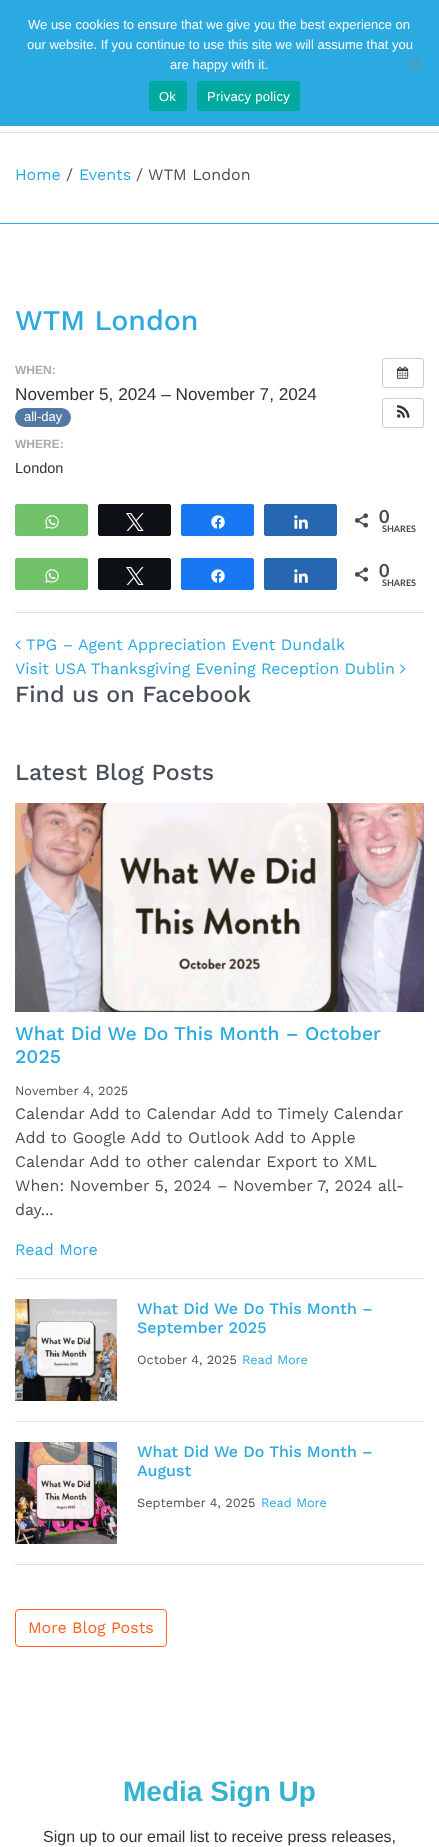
<!DOCTYPE html>
<meta charset="utf-8">
<style>body { margin: 0 } canvas { display: block }</style>
<canvas id="canvas" width="439" height="1847"></canvas>
<img id="img1" src="images/1.png" hidden>
<img id="img2" src="images/2.png" hidden>
<img id="img3" src="images/3.png" hidden>
<img id="img4" src="images/4.png" hidden>
<img id="img5" src="images/5.png" hidden>
<img id="img6" src="images/6.png" hidden>
<img id="img7" src="images/7.png" hidden>
<img id="img8" src="images/8.png" hidden>
<img id="img9" src="images/9.png" hidden>
<img id="img10" src="images/10.png" hidden>
<img id="img11" src="images/11.png" hidden>
<img id="img12" src="images/12.png" hidden>
<script>
window.onload = function () {
    const canvas = document.getElementById('canvas');
    const context = canvas.getContext('2d');
    context.miterLimit = 4;
    context.fontKerning = 'normal';

    context.fillStyle = 'rgb(255, 255, 255)';
    context.fillRect(0, 0, 439, 1847);
    context.fillStyle = 'rgb(42, 170, 224)';
    context.fillRect(0, 0, 439, 126);
    context.fillStyle = 'rgb(85, 149, 176)';
    context.beginPath();
    context.moveTo(419.5, 57.5);
    context.lineTo(421, 59);
    context.lineTo(410.5, 69.5);
    context.lineTo(409, 68);
    context.closePath();
    context.fill();
    context.beginPath();
    context.moveTo(409, 59);
    context.lineTo(410.5, 57.5);
    context.lineTo(421, 68);
    context.lineTo(419.5, 69.5);
    context.closePath();
    context.fill();
    context.fillStyle = 'rgb(0, 169, 157)';
    context.beginPath();
    context.roundRect(149, 81, 38, 30, 3);
    context.fill();
    context.beginPath();
    context.roundRect(197, 81, 103, 30, 3);
    context.fill();
    context.fillStyle = 'rgb(222, 226, 230)';
    context.fillRect(0, 132, 439, 1);
    context.fillStyle = 'rgb(42, 170, 224)';
    context.fillRect(0, 223, 439, 1);
    context.fillStyle = 'rgb(80, 122, 163)';
    context.beginPath();
    context.roundRect(15, 408, 56, 19, 9.5);
    context.fill();
    context.beginPath();
    context.roundRect(382.5, 358.5, 41, 29, 2.5);
    context.strokeStyle = 'rgb(204, 204, 204)';
    context.stroke();
    context.drawImage(document.getElementById('img1'), 397, 366, 12, 13);
    context.beginPath();
    context.roundRect(382.5, 398.5, 41, 29, 2.5);
    context.stroke();
    context.drawImage(document.getElementById('img2'), 397, 405, 13, 13);
    context.fillStyle = 'rgb(113, 193, 105)';
    context.beginPath();
    context.roundRect(15.5, 504.5, 72, 31, 1.5);
    context.fill();
    context.strokeStyle = 'rgb(113, 193, 105)';
    context.stroke();
    context.drawImage(document.getElementById('img3'), 45, 515, 14, 14);
    context.fillStyle = 'rgb(13, 16, 20)';
    context.beginPath();
    context.roundRect(98.5, 504.5, 72, 31, 1.5);
    context.fill();
    context.strokeStyle = 'rgb(13, 16, 20)';
    context.stroke();
    context.drawImage(document.getElementById('img4'), 126, 513, 18, 18);
    context.fillStyle = 'rgb(24, 119, 242)';
    context.beginPath();
    context.roundRect(181.5, 504.5, 72, 31, 1.5);
    context.fill();
    context.strokeStyle = 'rgb(24, 119, 242)';
    context.stroke();
    context.drawImage(document.getElementById('img5'), 211, 515, 14, 14);
    context.fillStyle = 'rgb(39, 103, 177)';
    context.beginPath();
    context.roundRect(264.5, 504.5, 72, 31, 1.5);
    context.fill();
    context.strokeStyle = 'rgb(39, 103, 177)';
    context.stroke();
    context.drawImage(document.getElementById('img6'), 294, 515, 14, 14);
    context.drawImage(document.getElementById('img7'), 354, 513, 14, 15);
    context.fillStyle = 'rgb(113, 193, 105)';
    context.beginPath();
    context.roundRect(15.5, 558.5, 72, 31, 1.5);
    context.fill();
    context.strokeStyle = 'rgb(113, 193, 105)';
    context.stroke();
    context.drawImage(document.getElementById('img3'), 45, 569, 14, 14);
    context.fillStyle = 'rgb(13, 16, 20)';
    context.beginPath();
    context.roundRect(98.5, 558.5, 72, 31, 1.5);
    context.fill();
    context.strokeStyle = 'rgb(13, 16, 20)';
    context.stroke();
    context.drawImage(document.getElementById('img4'), 126, 567, 18, 18);
    context.fillStyle = 'rgb(24, 119, 242)';
    context.beginPath();
    context.roundRect(181.5, 558.5, 72, 31, 1.5);
    context.fill();
    context.strokeStyle = 'rgb(24, 119, 242)';
    context.stroke();
    context.drawImage(document.getElementById('img5'), 211, 569, 14, 14);
    context.fillStyle = 'rgb(39, 103, 177)';
    context.beginPath();
    context.roundRect(264.5, 558.5, 72, 31, 1.5);
    context.fill();
    context.strokeStyle = 'rgb(39, 103, 177)';
    context.stroke();
    context.drawImage(document.getElementById('img6'), 294, 569, 14, 14);
    context.drawImage(document.getElementById('img7'), 354, 567, 14, 15);
    context.fillStyle = 'rgb(222, 226, 230)';
    context.fillRect(15, 612, 409, 1);
    context.drawImage(document.getElementById('img8'), 15, 640, 6, 10);
    context.drawImage(document.getElementById('img9'), 400, 664, 6, 10);
    context.fillRect(15, 1278, 409, 1);
    context.drawImage(document.getElementById('img10'), 15, 803, 409, 209);
    context.fillRect(15, 1421, 409, 1);
    context.drawImage(document.getElementById('img11'), 15, 1299, 102, 102);
    context.fillRect(15, 1564, 409, 1);
    context.drawImage(document.getElementById('img12'), 15, 1442, 102, 102);
    context.beginPath();
    context.roundRect(15.5, 1609.5, 151, 37, 3.5);
    context.strokeStyle = 'rgb(254, 98, 29)';
    context.stroke();
    context.font = '13px Liberation Sans';
    context.fillStyle = 'rgb(255, 255, 255)';
    context.fillText('We use cookies to ensure that we give you the best experience on', 28, 29);
    context.fillText('our website. If you continue to use this site we will assume that you', 27, 49);
    context.fillText('are happy with it.', 170, 69);
    context.letterSpacing = '0.25px';
    context.fillText('Ok', 159, 101);
    context.fillText('Privacy policy', 207, 101);
    context.letterSpacing = '0px';
    context.font = '16px Work Sans';
    context.fillStyle = 'rgb(42, 170, 224)';
    context.fillText('Home', 15, 180);
    context.fillStyle = 'rgb(73, 80, 87)';
    context.fillText('/', 66, 180);
    context.fillStyle = 'rgb(42, 170, 224)';
    context.fillText('Events', 79, 180);
    context.fillStyle = 'rgb(73, 80, 87)';
    context.fillText('/ WTM London', 136, 180);
    context.font = '500 28.5px Work Sans';
    context.fillStyle = 'rgb(42, 170, 224)';
    context.fillText('WTM London', 15, 330);
    context.font = 'bold 12px Liberation Sans';
    context.fillStyle = 'rgb(170, 170, 170)';
    context.fillText('WHEN:', 15, 374);
    context.font = '17.2px Liberation Sans';
    context.fillStyle = 'rgb(51, 51, 51)';
    context.fillText('November 5, 2024 – November 7, 2024', 15, 400);
    context.font = '13px Liberation Sans';
    context.fillStyle = 'rgb(255, 255, 255)';
    context.fillText('all-day', 24, 421);
    context.font = 'bold 12px Liberation Sans';
    context.fillStyle = 'rgb(170, 170, 170)';
    context.fillText('WHERE:', 15, 448);
    context.font = '14.5px Liberation Sans';
    context.fillStyle = 'rgb(51, 51, 51)';
    context.fillText('London', 15, 473);
    context.font = 'bold 18px Lato';
    context.fillStyle = 'rgb(71, 75, 77)';
    context.fillText('0', 379, 523);
    context.font = 'bold 9px Lato';
    context.fillText('SHARES', 382, 532);
    context.font = 'bold 18px Lato';
    context.fillText('0', 379, 577);
    context.font = 'bold 9px Lato';
    context.fillText('SHARES', 382, 586);
    context.font = '16px Work Sans';
    context.fillStyle = 'rgb(42, 170, 224)';
    context.fillText('TPG – Agent Appreciation Event Dundalk', 26, 650);
    context.fillText('Visit USA Thanksgiving Evening Reception Dublin', 15, 674);
    context.font = '500 23.25px Work Sans';
    context.fillStyle = 'rgb(73, 80, 87)';
    context.fillText('Find us on Facebook', 15, 702);
    context.fillText('Latest Blog Posts', 15, 780);
    context.font = '500 19.25px Work Sans';
    context.fillStyle = 'rgb(42, 170, 224)';
    context.fillText('What Did We Do This Month – October', 15, 1040);
    context.fillText('2025', 15, 1063);
    context.font = '12.75px Work Sans';
    context.fillStyle = 'rgb(73, 80, 87)';
    context.fillText('November 4, 2025', 15, 1095);
    context.font = '16px Work Sans';
    context.fillText('Calendar Add to Calendar Add to Timely Calendar', 15, 1119);
    context.fillText('Add to Google Add to Outlook Add to Apple', 15, 1143);
    context.fillText('Calendar Add to other calendar Export to XML', 15, 1167);
    context.fillText('When: November 5, 2024 – November 7, 2024 all-', 15, 1191);
    context.fillText('day...', 15, 1215);
    context.fillStyle = 'rgb(42, 170, 224)';
    context.fillText('Read More', 15, 1255);
    context.font = '500 16px Work Sans';
    context.fillText('What Did We Do This Month –', 137, 1314);
    context.fillText('September 2025', 137, 1333);
    context.font = '12.75px Work Sans';
    context.fillStyle = 'rgb(73, 80, 87)';
    context.fillText('October 4, 2025', 137, 1364);
    context.fillStyle = 'rgb(42, 170, 224)';
    context.fillText('Read More', 242, 1364);
    context.font = '500 16px Work Sans';
    context.fillText('What Did We Do This Month –', 137, 1457);
    context.fillText('August', 137, 1476);
    context.font = '12.75px Work Sans';
    context.fillStyle = 'rgb(73, 80, 87)';
    context.fillText('September 4, 2025', 137, 1507);
    context.fillStyle = 'rgb(42, 170, 224)';
    context.fillText('Read More', 261, 1507);
    context.font = '16px Work Sans';
    context.fillStyle = 'rgb(254, 98, 29)';
    context.fillText('More Blog Posts', 28, 1633);
    context.font = 'bold 28px Liberation Sans';
    context.fillStyle = 'rgb(52, 179, 208)';
    context.fillText('Media Sign Up', 123, 1801);
    context.font = '16px Liberation Sans';
    context.fillStyle = 'rgb(51, 51, 51)';
    context.fillText('Sign up to our email list to receive press releases,', 43, 1842);
};
</script>
